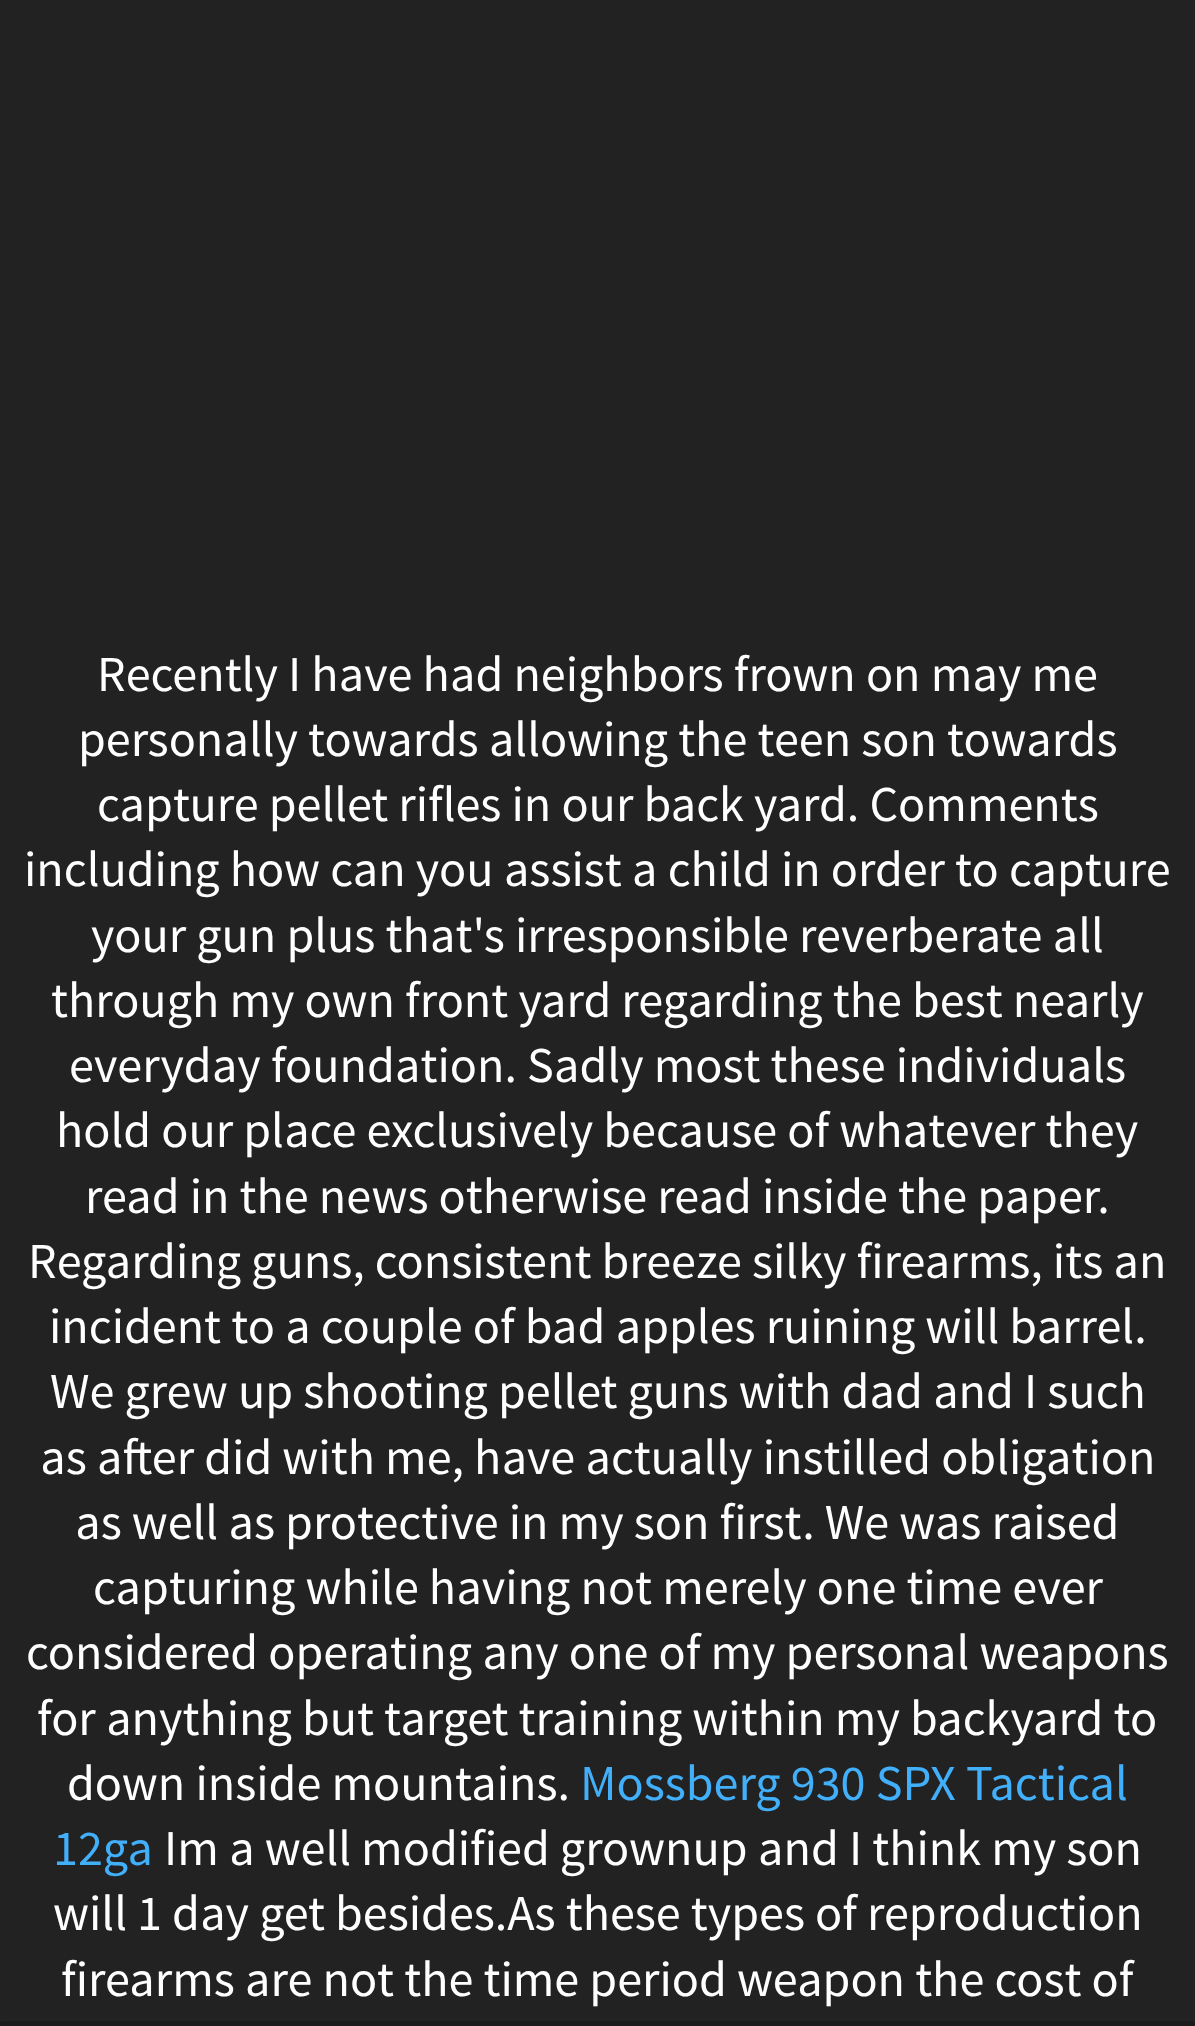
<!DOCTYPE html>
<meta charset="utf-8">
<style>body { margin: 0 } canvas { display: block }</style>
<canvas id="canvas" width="1195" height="2026"></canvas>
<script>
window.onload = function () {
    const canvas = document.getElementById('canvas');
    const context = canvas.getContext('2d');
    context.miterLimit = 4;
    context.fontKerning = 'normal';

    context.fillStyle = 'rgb(34, 34, 34)';
    context.fillRect(0, 0, 1195, 2026);
    context.fillStyle = 'rgba(0, 0, 0, 0.2)';
    context.beginPath();
    context.roundRect(0, 2021, 1195, 5, 2.5);
    context.fill();
    context.font = '50.2px Source Sans Pro';
    context.fillStyle = 'rgb(255, 255, 255)';
    context.fillText('Recently I have had neighbors frown on may me', 97, 691);
    context.fillText('personally towards allowing the teen son towards', 78, 756);
    context.fillText('capture pellet rifles in our back yard. Comments', 97, 821);
    context.fillText('including how can you assist a child in order to capture', 24, 886);
    context.fillText('your gun plus that\'s irresponsible reverberate all', 91, 952);
    context.fillText('through my own front yard regarding the best nearly', 51, 1017);
    context.fillText('everyday foundation. Sadly most these individuals', 69, 1082);
    context.fillText('hold our place exclusively because of whatever they', 56, 1147);
    context.fillText('read in the news otherwise read inside the paper.', 85, 1213);
    context.fillText('Regarding guns, consistent breeze silky firearms, its an', 28, 1278);
    context.fillText('incident to a couple of bad apples ruining will barrel.', 49, 1343);
    context.fillText('We grew up shooting pellet guns with dad and I such', 50, 1408);
    context.fillText('as after did with me, have actually instilled obligation', 40, 1474);
    context.fillText('as well as protective in my son first. We was raised', 75, 1539);
    context.fillText('capturing while having not merely one time ever', 93, 1604);
    context.fillText('considered operating any one of my personal weapons', 26, 1669);
    context.fillText('for anything but target training within my backyard to', 37, 1735);
    context.fillText('down inside mountains.', 67, 1800);
    context.fillStyle = 'rgb(66, 175, 250)';
    context.fillText('Mossberg 930 SPX Tactical', 580, 1800);
    context.fillText('12ga', 53, 1865);
    context.fillStyle = 'rgb(255, 255, 255)';
    context.fillText('Im a well modified grownup and I think my son', 164, 1865);
    context.fillText('will 1 day get besides.As these types of reproduction', 53, 1930);
    context.fillText('firearms are not the time period weapon the cost of', 61, 1996);
};
</script>
